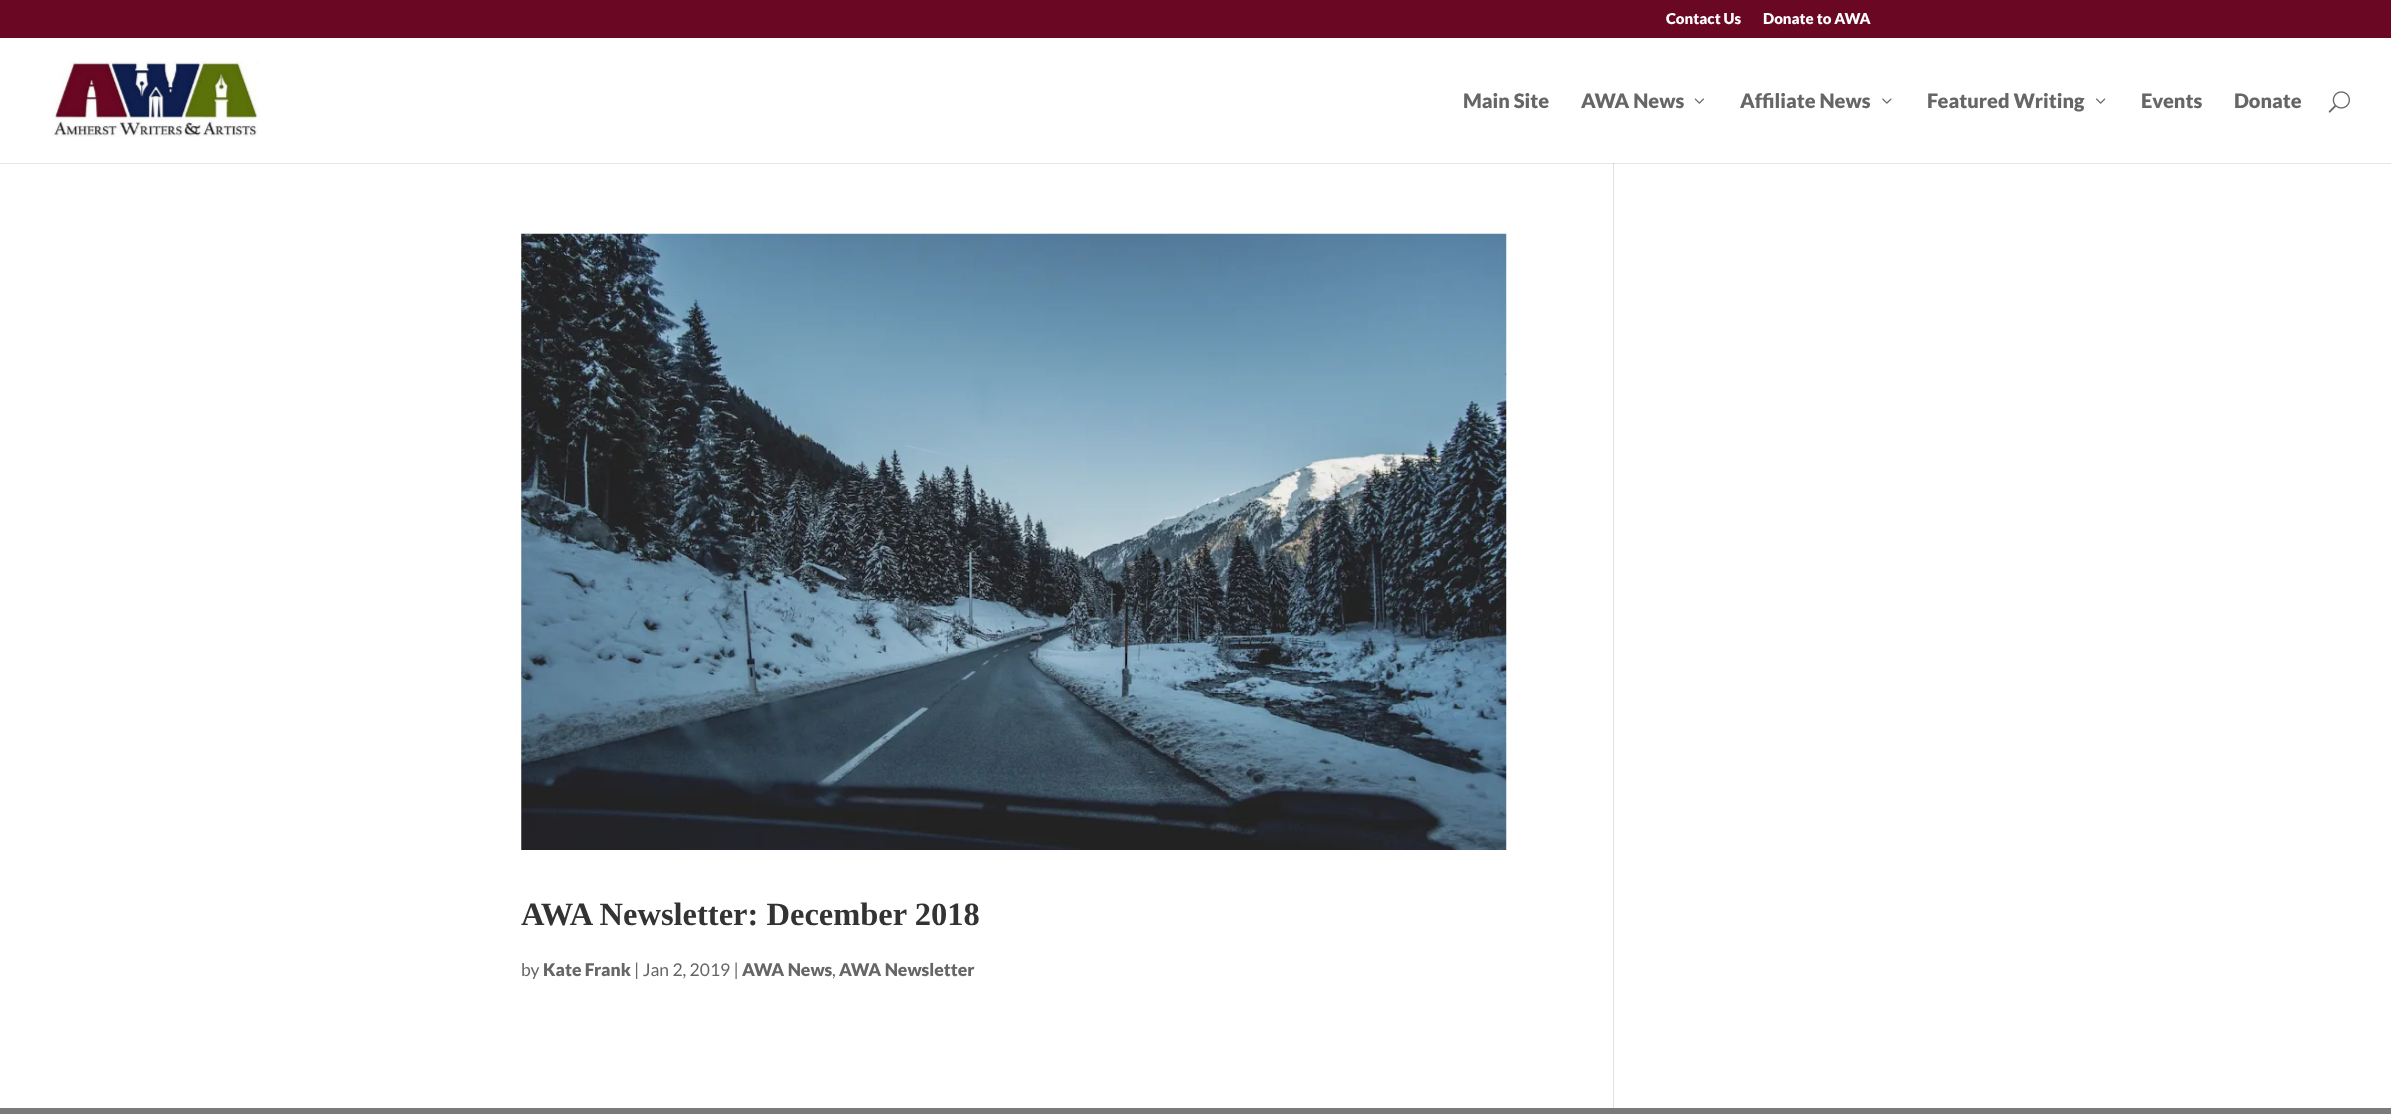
<!DOCTYPE html>
<meta charset="utf-8">
<style>body { margin: 0 } canvas { display: block }</style>
<canvas id="canvas" width="2391" height="1114"></canvas>
<img id="img1" src="images/1.png" hidden>
<img id="img2" src="images/2.png" hidden>
<img id="img3" src="images/3.png" hidden>
<img id="img4" src="images/4.png" hidden>
<img id="img5" src="images/5.png" hidden>
<img id="img6" src="images/6.png" hidden>
<script>
window.onload = function () {
    const canvas = document.getElementById('canvas');
    const context = canvas.getContext('2d');
    context.miterLimit = 4;
    context.fontKerning = 'normal';

    context.fillStyle = 'rgb(106, 7, 35)';
    context.fillRect(0, 0, 2391, 1114);
    context.fillStyle = 'rgb(255, 255, 255)';
    context.fillRect(0, 164, 2391, 944);
    context.fillStyle = 'rgb(230, 230, 230)';
    context.fillRect(0, 163, 2391, 1);
    context.fillStyle = 'rgb(226, 226, 226)';
    context.fillRect(1613, 161, 1, 947);
    context.fillStyle = 'rgb(203, 203, 203)';
    context.fillRect(1613, 162, 1, 2);
    context.fillStyle = 'rgb(255, 255, 255)';
    context.fillRect(0, 38, 2391, 125);
    context.drawImage(document.getElementById('img1'), 51, 61, 209, 76);
    context.drawImage(document.getElementById('img2'), 1694, 98, 10, 6);
    context.drawImage(document.getElementById('img3'), 1882, 98, 10, 6);
    context.drawImage(document.getElementById('img4'), 2096, 98, 10, 6);
    context.drawImage(document.getElementById('img5'), 2328, 91, 22, 22);
    context.drawImage(document.getElementById('img6'), 521, 233, 986, 617);
    context.fillStyle = 'rgb(122, 122, 122)';
    context.fillRect(0, 1108, 2391, 6);
    context.font = '900 15px Lato';
    context.fillStyle = 'rgb(255, 255, 255)';
    context.fillText('Contact Us', 1666, 24);
    context.fillText('Donate to AWA', 1763, 24);
    context.font = '900 20px Lato';
    context.fillStyle = 'rgb(102, 102, 102)';
    context.fillText('Main Site', 1463, 108);
    context.fillText('AWA News', 1581, 108);
    context.fillText('Affiliate News', 1740, 108);
    context.fillText('Featured Writing', 1927, 108);
    context.fillText('Events', 2141, 108);
    context.fillText('Donate', 2234, 108);
    context.font = 'bold 32.5px Liberation Serif';
    context.fillStyle = 'rgb(51, 51, 51)';
    context.fillText('AWA Newsletter: December 2018', 521, 925);
    context.font = '17.5px Lato';
    context.fillStyle = 'rgb(102, 102, 102)';
    context.fillText('by', 521, 976);
    context.font = '900 17.5px Lato';
    context.fillText('Kate Frank', 543, 976);
    context.font = '17.5px Lato';
    context.fillText('| Jan 2, 2019 |', 634, 976);
    context.font = '900 17.5px Lato';
    context.fillText('AWA News', 742, 976);
    context.font = '17.5px Lato';
    context.fillText(',', 832, 976);
    context.font = '900 17.5px Lato';
    context.fillText('AWA Newsletter', 839, 976);
};
</script>
